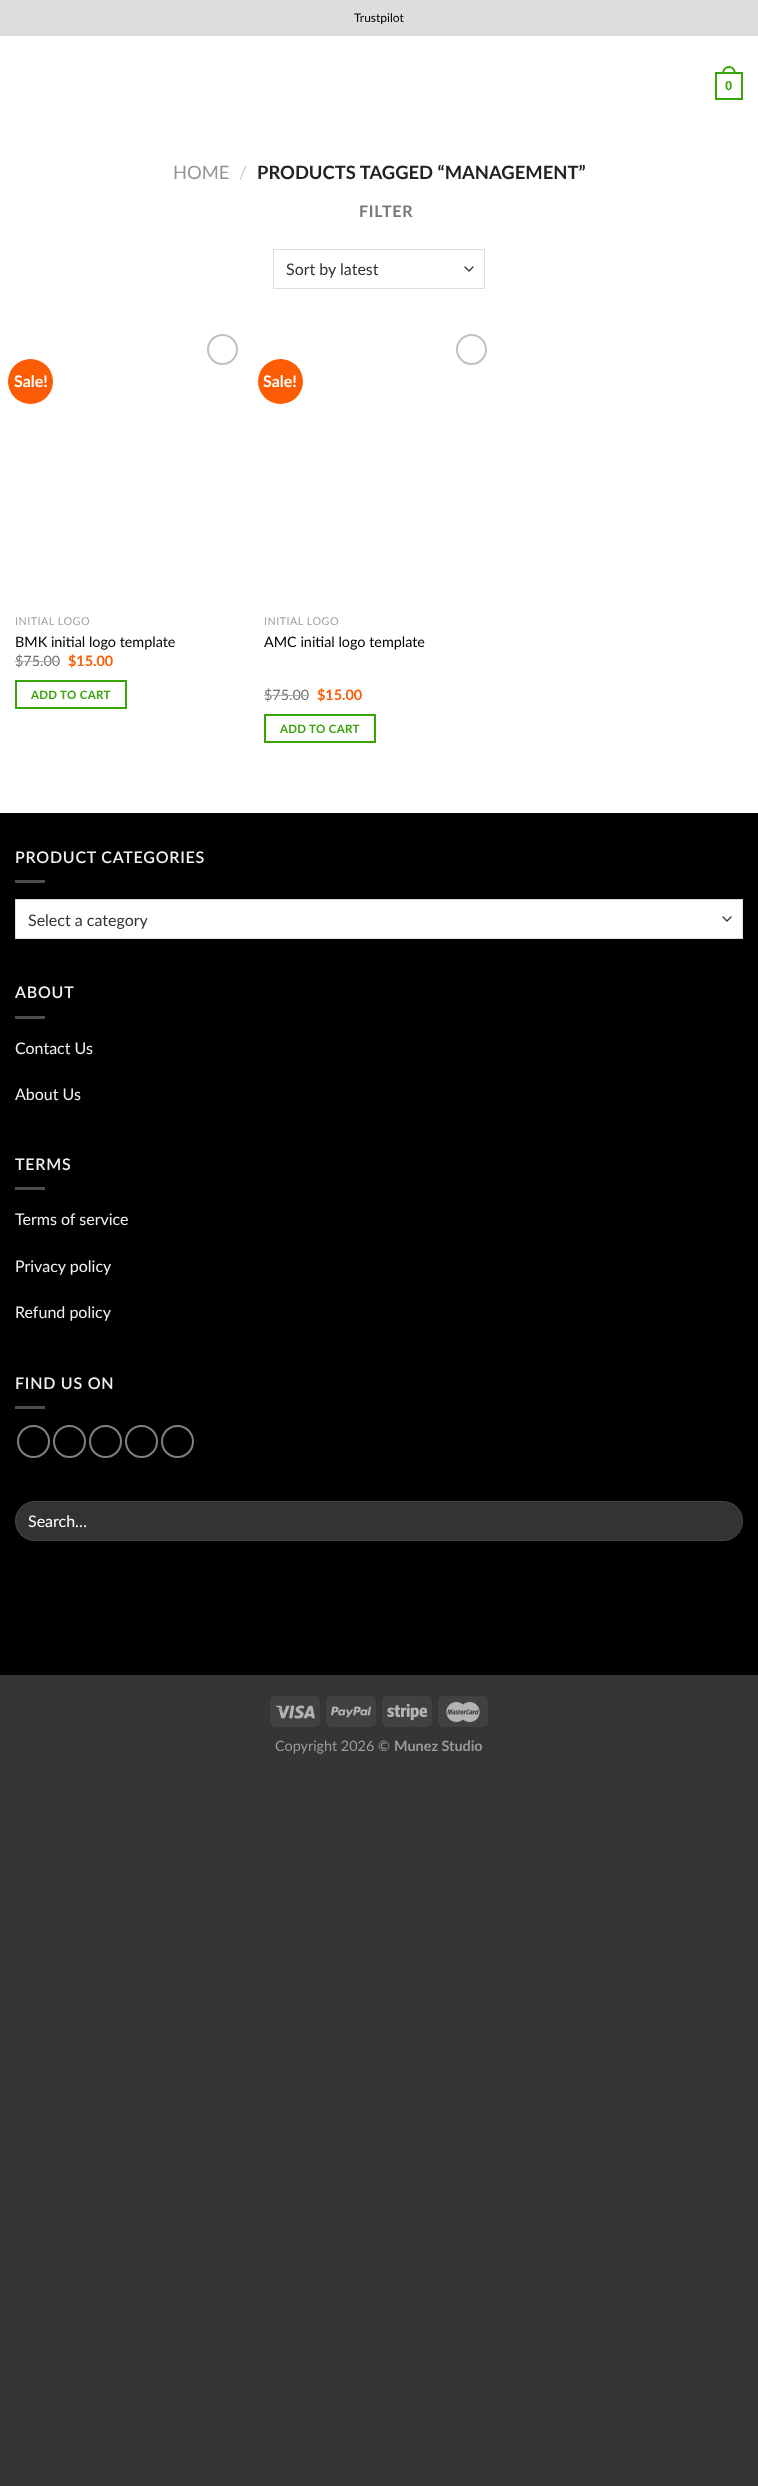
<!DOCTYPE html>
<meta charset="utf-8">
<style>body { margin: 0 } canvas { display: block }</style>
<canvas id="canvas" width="758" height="2486"></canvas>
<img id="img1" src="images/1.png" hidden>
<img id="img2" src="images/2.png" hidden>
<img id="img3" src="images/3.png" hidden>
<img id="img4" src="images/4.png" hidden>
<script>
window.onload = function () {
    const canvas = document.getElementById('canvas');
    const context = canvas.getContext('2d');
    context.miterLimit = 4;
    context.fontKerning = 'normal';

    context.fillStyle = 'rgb(53, 53, 53)';
    context.fillRect(0, 0, 758, 2486);
    context.fillStyle = 'rgb(255, 255, 255)';
    context.fillRect(0, 36, 758, 777);
    context.fillStyle = 'rgb(221, 221, 221)';
    context.fillRect(0, 0, 758, 36);
    context.strokeStyle = 'rgb(57, 163, 10)';
    context.lineWidth = 2;
    context.strokeRect(716, 73, 26, 26);
    context.fillStyle = 'rgb(57, 163, 10)';
    context.beginPath();
    context.moveTo(729, 66);
    context.bezierCurveTo(733.5, 66, 736, 70, 736, 74);
    context.lineTo(722, 74);
    context.bezierCurveTo(722, 70, 724.5, 66, 729, 66);
    context.closePath();
    context.moveTo(729, 68);
    context.bezierCurveTo(732.5, 68, 734, 71, 734, 74);
    context.lineTo(724, 74);
    context.bezierCurveTo(724, 71, 725.5, 68, 729, 68);
    context.closePath();
    context.fill('evenodd');
    context.beginPath();
    context.moveTo(465, 267);
    context.lineTo(469, 271);
    context.lineTo(473, 267);
    context.strokeStyle = 'rgb(51, 51, 51)';
    context.lineWidth = 1.3;
    context.lineCap = 'round';
    context.lineJoin = 'round';
    context.stroke();
    context.strokeStyle = 'rgb(221, 221, 221)';
    context.lineWidth = 1;
    context.lineJoin = 'miter';
    context.strokeRect(273.5, 249.5, 211, 39);
    context.fillStyle = 'rgb(252, 92, 4)';
    context.beginPath();
    context.arc(30.5, 381.5, 22.5, 0, 2 * Math.PI);
    context.fill();
    context.beginPath();
    context.arc(222.5, 349.5, 14.5, 0, 2 * Math.PI);
    context.strokeStyle = 'rgb(192, 192, 192)';
    context.lineWidth = 2;
    context.stroke();
    context.strokeStyle = 'rgb(57, 163, 10)';
    context.strokeRect(16, 681, 110, 27);
    context.beginPath();
    context.arc(280.5, 381.5, 22.5, 0, 2 * Math.PI);
    context.fill();
    context.beginPath();
    context.arc(471.5, 349.5, 14.5, 0, 2 * Math.PI);
    context.strokeStyle = 'rgb(192, 192, 192)';
    context.stroke();
    context.strokeStyle = 'rgb(57, 163, 10)';
    context.strokeRect(265, 715, 110, 27);
    context.fillStyle = 'rgb(0, 0, 0)';
    context.fillRect(0, 813, 758, 862);
    context.fillStyle = 'rgb(77, 77, 77)';
    context.fillRect(15, 880, 30, 3);
    context.fillStyle = 'rgb(255, 255, 255)';
    context.fillRect(16, 900, 726, 38);
    context.beginPath();
    context.moveTo(723, 917);
    context.lineTo(727, 921);
    context.lineTo(731, 917);
    context.strokeStyle = 'rgb(51, 51, 51)';
    context.lineWidth = 1.3;
    context.lineJoin = 'round';
    context.stroke();
    context.strokeStyle = 'rgb(221, 221, 221)';
    context.lineWidth = 1;
    context.lineJoin = 'miter';
    context.strokeRect(15.5, 899.5, 727, 39);
    context.fillStyle = 'rgb(77, 77, 77)';
    context.fillRect(15, 1016, 30, 3);
    context.fillRect(15, 1187, 30, 3);
    context.fillRect(15, 1406, 30, 3);
    context.beginPath();
    context.arc(33.5, 1441.5, 15.5, 0, 2 * Math.PI);
    context.strokeStyle = 'rgb(128, 128, 128)';
    context.lineWidth = 2;
    context.stroke();
    context.beginPath();
    context.arc(69.5, 1441.5, 15.5, 0, 2 * Math.PI);
    context.stroke();
    context.beginPath();
    context.arc(105.5, 1441.5, 15.5, 0, 2 * Math.PI);
    context.stroke();
    context.beginPath();
    context.arc(141.5, 1441.5, 15.5, 0, 2 * Math.PI);
    context.stroke();
    context.beginPath();
    context.arc(177.5, 1441.5, 15.5, 0, 2 * Math.PI);
    context.stroke();
    context.fillStyle = 'rgb(51, 51, 51)';
    context.beginPath();
    context.roundRect(15, 1501, 728, 40, 20);
    context.fill();
    context.beginPath();
    context.roundRect(15.5, 1501.5, 727, 39, 19.5);
    context.strokeStyle = 'rgba(255, 255, 255, 0.09)';
    context.lineWidth = 1;
    context.stroke();
    context.fillStyle = 'rgb(65, 65, 65)';
    context.beginPath();
    context.roundRect(270, 1696, 50, 31, 5);
    context.fill();
    context.drawImage(document.getElementById('img1'), 275, 1705, 40, 14);
    context.beginPath();
    context.roundRect(326, 1696, 50, 31, 5);
    context.fill();
    context.drawImage(document.getElementById('img2'), 331, 1706, 40, 12);
    context.beginPath();
    context.roundRect(382, 1696, 50, 31, 5);
    context.fill();
    context.drawImage(document.getElementById('img3'), 387, 1703, 40, 18);
    context.beginPath();
    context.roundRect(438, 1696, 50, 31, 5);
    context.fill();
    context.drawImage(document.getElementById('img4'), 446, 1702, 34, 20);
    context.font = '12px Lato';
    context.fillStyle = 'rgb(0, 0, 0)';
    context.fillText('Trustpilot', 354, 22);
    context.font = 'bold 13px Liberation Sans';
    context.fillStyle = 'rgb(57, 163, 10)';
    context.fillText('0', 725, 90);
    context.font = '18.4px Lato';
    context.fillStyle = 'rgb(148, 148, 148)';
    context.fillText('HOME', 173, 179);
    context.font = '300 18.4px Lato';
    context.fillStyle = 'rgb(178, 178, 178)';
    context.fillText('/', 239, 179);
    context.font = 'bold 18.4px Lato';
    context.fillStyle = 'rgb(34, 34, 34)';
    context.fillText('PRODUCTS TAGGED “MANAGEMENT”', 257, 179);
    context.letterSpacing = '0.75px';
    context.font = 'bold 16px Lato';
    context.fillStyle = 'rgb(119, 119, 119)';
    context.fillText('FILTER', 359, 217);
    context.letterSpacing = '0px';
    context.font = '16px Lato';
    context.fillStyle = 'rgb(51, 51, 51)';
    context.fillText('Sort by latest', 286, 275);
    context.font = 'bold 16px Lato';
    context.fillStyle = 'rgb(255, 255, 255)';
    context.fillText('Sale!', 14, 387);
    context.letterSpacing = '0.5px';
    context.font = '10.75px Lato';
    context.fillStyle = 'rgb(160, 160, 160)';
    context.fillText('INITIAL LOGO', 15, 625);
    context.letterSpacing = '0px';
    context.font = '14.4px Lato';
    context.fillStyle = 'rgb(0, 0, 0)';
    context.fillText('BMK initial logo template', 15, 647);
    context.fillStyle = 'rgb(112, 112, 112)';
    context.fillText('$75.00', 15, 666);
    context.fillStyle = 'rgb(173, 173, 173)';
    context.fillRect(15, 661, 45, 1);
    context.font = 'bold 14.4px Lato';
    context.fillStyle = 'rgb(252, 92, 4)';
    context.fillText('$15.00', 68, 666);
    context.letterSpacing = '0.3px';
    context.font = 'bold 11.5px Lato';
    context.fillStyle = 'rgb(57, 163, 10)';
    context.fillText('ADD TO CART', 31, 699);
    context.letterSpacing = '0px';
    context.font = 'bold 16px Lato';
    context.fillStyle = 'rgb(255, 255, 255)';
    context.fillText('Sale!', 263, 387);
    context.letterSpacing = '0.5px';
    context.font = '10.75px Lato';
    context.fillStyle = 'rgb(160, 160, 160)';
    context.fillText('INITIAL LOGO', 264, 625);
    context.letterSpacing = '0px';
    context.font = '14.4px Lato';
    context.fillStyle = 'rgb(0, 0, 0)';
    context.fillText('AMC initial logo template', 264, 647);
    context.fillStyle = 'rgb(112, 112, 112)';
    context.fillText('$75.00', 264, 700);
    context.fillStyle = 'rgb(173, 173, 173)';
    context.fillRect(264, 695, 45, 1);
    context.font = 'bold 14.4px Lato';
    context.fillStyle = 'rgb(252, 92, 4)';
    context.fillText('$15.00', 317, 700);
    context.letterSpacing = '0.3px';
    context.font = 'bold 11.5px Lato';
    context.fillStyle = 'rgb(57, 163, 10)';
    context.fillText('ADD TO CART', 280, 733);
    context.letterSpacing = '0.75px';
    context.font = '600 16px Lato';
    context.fillStyle = 'rgb(241, 241, 241)';
    context.fillText('PRODUCT CATEGORIES', 15, 863);
    context.letterSpacing = '0px';
    context.font = '16px Lato';
    context.fillStyle = 'rgb(51, 51, 51)';
    context.fillText('Select a category', 28, 926);
    context.letterSpacing = '0.75px';
    context.font = '600 16px Lato';
    context.fillStyle = 'rgb(241, 241, 241)';
    context.fillText('ABOUT', 15, 998);
    context.letterSpacing = '0px';
    context.font = '16px Lato';
    context.fillText('Contact Us', 15, 1054);
    context.fillText('About Us', 15, 1100);
    context.letterSpacing = '0.75px';
    context.font = '600 16px Lato';
    context.fillText('TERMS', 15, 1170);
    context.letterSpacing = '0px';
    context.font = '16px Lato';
    context.fillText('Terms of service', 15, 1225);
    context.fillText('Privacy policy', 15, 1272);
    context.fillText('Refund policy', 15, 1318);
    context.letterSpacing = '0.75px';
    context.font = '600 16px Lato';
    context.fillText('FIND US ON', 15, 1389);
    context.letterSpacing = '0px';
    context.font = '16px Lato';
    context.fillStyle = 'rgb(255, 255, 255)';
    context.fillText('Search…', 28, 1527);
    context.font = '14.4px Lato';
    context.fillStyle = 'rgb(154, 154, 154)';
    context.fillText('Copyright 2026 ©', 275, 1751);
    context.font = 'bold 14.4px Lato';
    context.fillText('Munez Studio', 394, 1751);
};
</script>
